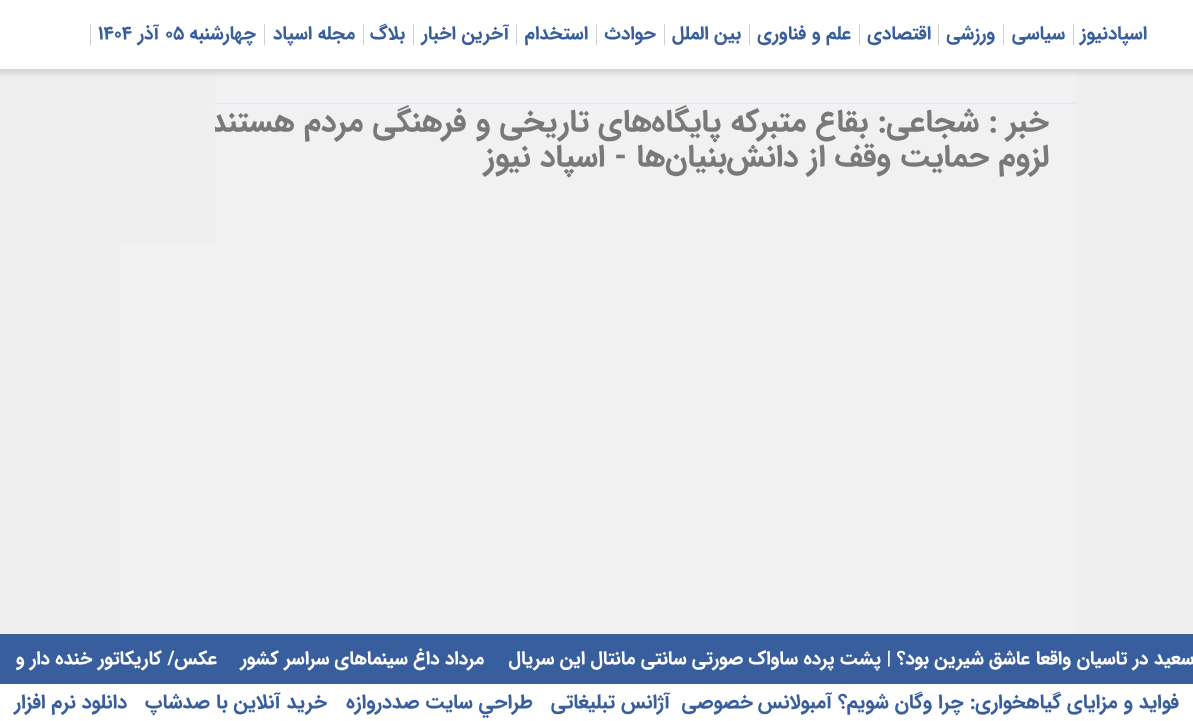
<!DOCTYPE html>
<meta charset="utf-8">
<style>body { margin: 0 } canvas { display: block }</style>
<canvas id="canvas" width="1193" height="721"></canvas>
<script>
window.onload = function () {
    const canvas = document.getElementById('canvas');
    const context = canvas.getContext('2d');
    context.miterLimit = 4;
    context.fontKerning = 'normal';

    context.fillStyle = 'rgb(241, 241, 241)';
    context.fillRect(0, 0, 1193, 721);
    context.fillStyle = 'rgb(241, 242, 247)';
    context.fillRect(215, 103, 860, 6);
    context.fillStyle = 'rgba(0, 0, 0, 0.05)';
    context.filter = 'blur(0.5px)';
    context.beginPath();
    context.roundRect(0, 101, 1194, 3, 1.5);
    context.fill();
    context.filter = 'none';
    context.fillStyle = 'rgb(241, 241, 241)';
    context.fillRect(215, 101, 860, 2);
    context.fillStyle = 'rgb(238, 239, 238)';
    context.fillRect(1075, 69, 118, 565);
    context.fillRect(0, 69, 120, 565);
    context.fillStyle = 'rgb(56, 94, 157)';
    context.fillRect(0, 634, 1193, 50);
    context.fillStyle = 'rgb(255, 255, 255)';
    context.fillRect(0, 684, 1193, 37);
    context.direction = 'rtl';
    context.font = 'bold 31.25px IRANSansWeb';
    context.fillStyle = 'rgb(121, 121, 121)';
    context.fillText('خبر : شجاعی: بقاع متبرکه پایگاه‌های تاریخی و فرهنگی مردم هستند/', 1049, 131);
    context.fillText('لزوم حمایت وقف از دانش‌بنیان‌ها - اسپاد نیوز', 1049, 166);
    context.fillStyle = 'rgb(238, 239, 238)';
    context.fillRect(120, 69, 95, 175);
    context.fillStyle = 'rgba(0, 0, 0, 0.1)';
    context.filter = 'blur(2px)';
    context.beginPath();
    context.rect(-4, -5, 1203, 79);
    context.fill();
    context.filter = 'none';
    context.fillStyle = 'rgb(255, 255, 255)';
    context.fillRect(0, 0, 1193, 69);
    context.font = 'bold 18.75px IRANSansWeb';
    context.fillStyle = 'rgb(56, 94, 157)';
    context.fillText('چهارشنبه', 256, 39);
    context.direction = 'ltr';
    context.fillText('۰۵', 165, 39);
    context.direction = 'rtl';
    context.fillText('آذر', 159, 39);
    context.direction = 'ltr';
    context.fillText('۱۴۰۴', 98, 39);
    context.fillStyle = 'rgb(208, 208, 208)';
    context.fillRect(90, 24, 1, 21);
    context.direction = 'rtl';
    context.fillStyle = 'rgb(56, 94, 157)';
    context.fillText('مجله اسپاد', 355, 39);
    context.fillStyle = 'rgb(208, 208, 208)';
    context.fillRect(264, 24, 1, 21);
    context.fillStyle = 'rgb(56, 94, 157)';
    context.fillText('بلاگ', 405, 39);
    context.fillStyle = 'rgb(208, 208, 208)';
    context.fillRect(363, 24, 1, 21);
    context.fillStyle = 'rgb(56, 94, 157)';
    context.fillText('آخرین اخبار', 509, 39);
    context.fillStyle = 'rgb(208, 208, 208)';
    context.fillRect(413, 24, 1, 21);
    context.fillStyle = 'rgb(56, 94, 157)';
    context.fillText('استخدام', 588, 39);
    context.fillStyle = 'rgb(208, 208, 208)';
    context.fillRect(516, 24, 1, 21);
    context.fillStyle = 'rgb(56, 94, 157)';
    context.fillText('حوادث', 656, 39);
    context.fillStyle = 'rgb(208, 208, 208)';
    context.fillRect(596, 24, 1, 21);
    context.fillStyle = 'rgb(56, 94, 157)';
    context.fillText('بین الملل', 741, 39);
    context.fillStyle = 'rgb(208, 208, 208)';
    context.fillRect(664, 24, 1, 21);
    context.fillStyle = 'rgb(56, 94, 157)';
    context.fillText('علم و فناوری', 851, 39);
    context.fillStyle = 'rgb(208, 208, 208)';
    context.fillRect(749, 24, 1, 21);
    context.fillStyle = 'rgb(56, 94, 157)';
    context.fillText('اقتصادی', 931, 39);
    context.fillStyle = 'rgb(208, 208, 208)';
    context.fillRect(859, 24, 1, 21);
    context.fillStyle = 'rgb(56, 94, 157)';
    context.fillText('ورزشی', 995, 39);
    context.fillStyle = 'rgb(208, 208, 208)';
    context.fillRect(938, 24, 1, 21);
    context.fillStyle = 'rgb(56, 94, 157)';
    context.fillText('سیاسی', 1065, 39);
    context.fillStyle = 'rgb(208, 208, 208)';
    context.fillRect(1003, 24, 1, 21);
    context.fillStyle = 'rgb(56, 94, 157)';
    context.fillText('اسپادنیوز', 1147, 39);
    context.fillStyle = 'rgb(208, 208, 208)';
    context.fillRect(1073, 24, 1, 21);
    context.fillStyle = 'rgb(255, 255, 255)';
    context.fillText('سعید در تاسیان واقعا عاشق شیرین بود؟ | پشت پرده ساواک صورتی سانتی مانتال این سریال', 1194, 664);
    context.fillText('مرداد داغ سینما‌های سراسر کشور', 484, 664);
    context.fillText('عکس/ کاریکاتور خنده دار و', 217, 664);
    context.font = 'bold 20px IRANSansWeb';
    context.fillStyle = 'rgb(56, 94, 157)';
    context.fillText('فواید و مزایای گیاهخواری: چرا وگان شویم؟', 1179, 708);
    context.wordSpacing = '-1px';
    context.fillText('آمبولانس خصوصی', 832, 708);
    context.wordSpacing = '0px';
    context.fillText('آژانس تبلیغاتی', 670, 708);
    context.fillText('طراحي سايت صددروازه', 533, 708);
    context.fillText('خريد آنلاين با صدشاپ', 327, 708);
    context.fillText('دانلود نرم افزار', 127, 708);
};
</script>
